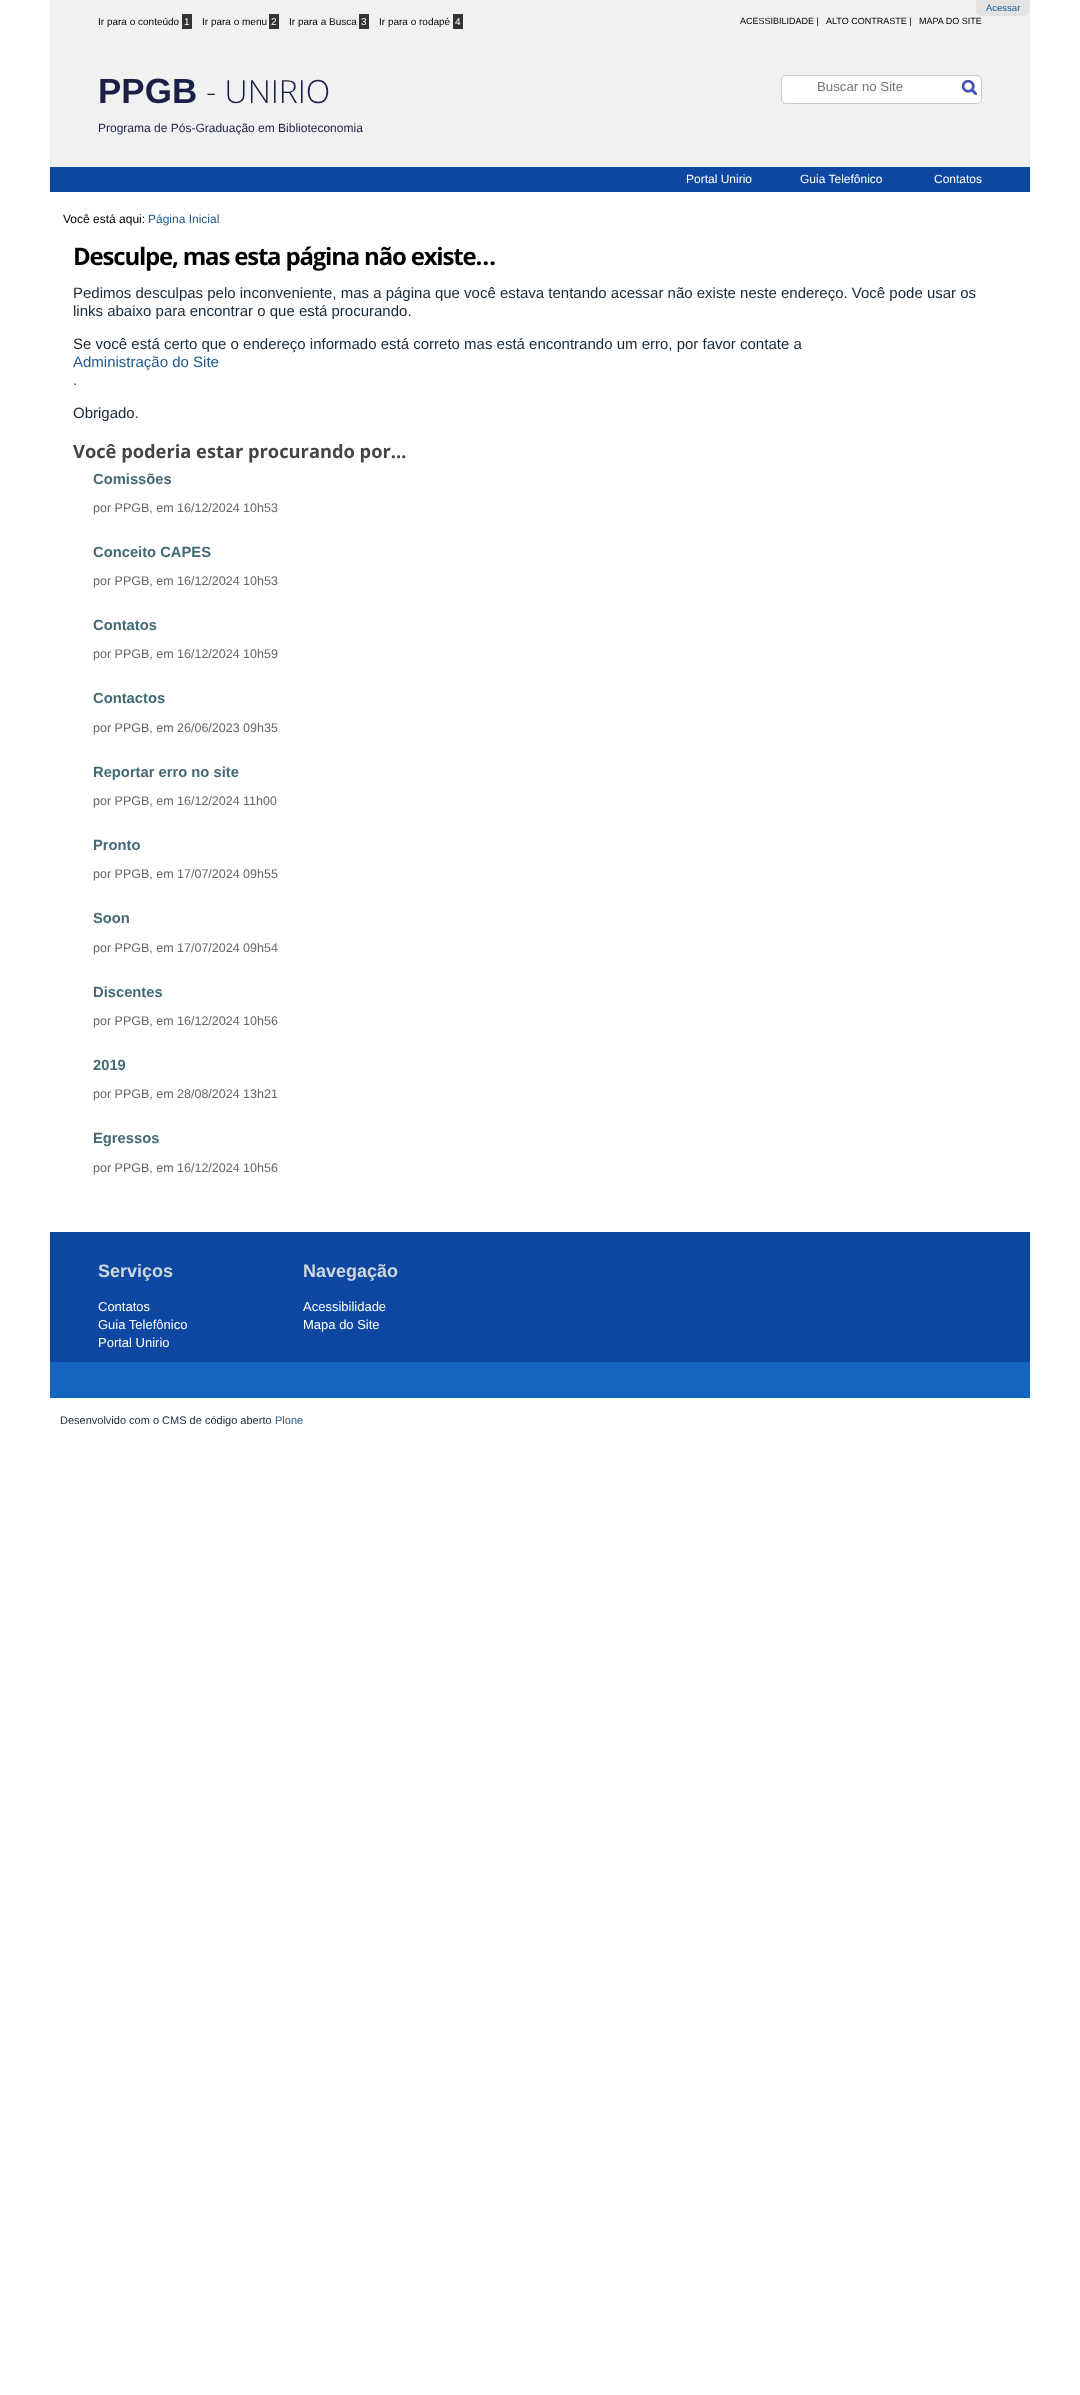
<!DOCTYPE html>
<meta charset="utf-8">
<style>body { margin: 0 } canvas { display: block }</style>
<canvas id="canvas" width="1080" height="2395"></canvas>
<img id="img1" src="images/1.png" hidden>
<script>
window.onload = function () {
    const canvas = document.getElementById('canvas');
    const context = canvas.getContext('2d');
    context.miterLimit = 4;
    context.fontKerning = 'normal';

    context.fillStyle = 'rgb(255, 255, 255)';
    context.fillRect(0, 0, 1080, 2395);
    context.fillStyle = 'rgb(241, 241, 241)';
    context.fillRect(50, 0, 980, 167);
    context.fillStyle = 'rgb(227, 227, 227)';
    context.beginPath();
    context.roundRect(976, 0, 54, 16, [0, 0, 5, 5]);
    context.fill();
    context.fillStyle = 'rgb(51, 51, 51)';
    context.fillRect(182, 14, 10, 15);
    context.fillRect(269, 14, 10, 15);
    context.fillRect(359, 14, 10, 15);
    context.fillRect(453, 14, 10, 15);
    context.fillStyle = 'rgb(255, 255, 255)';
    context.beginPath();
    context.roundRect(781.5, 75.5, 200, 28, 4.5);
    context.fill();
    context.strokeStyle = 'rgb(204, 204, 204)';
    context.stroke();
    context.drawImage(document.getElementById('img1'), 962, 80, 15, 15);
    context.fillStyle = 'rgb(13, 71, 161)';
    context.fillRect(50, 167, 980, 25);
    context.fillRect(50, 1232, 980, 130);
    context.fillStyle = 'rgb(21, 101, 192)';
    context.fillRect(50, 1362, 980, 36);
    context.font = '9.5px Liberation Sans';
    context.fillStyle = 'rgb(32, 92, 144)';
    context.fillText('Acessar', 986, 11);
    context.font = '10px Liberation Sans';
    context.fillStyle = 'rgb(0, 0, 0)';
    context.fillText('Ir para o conteúdo', 98, 25);
    context.fillStyle = 'rgb(255, 255, 255)';
    context.fillText('1', 184, 25);
    context.fillStyle = 'rgb(0, 0, 0)';
    context.fillText('Ir para o menu', 202, 25);
    context.fillStyle = 'rgb(255, 255, 255)';
    context.fillText('2', 271, 25);
    context.fillStyle = 'rgb(0, 0, 0)';
    context.fillText('Ir para a Busca', 289, 25);
    context.fillStyle = 'rgb(255, 255, 255)';
    context.fillText('3', 361, 25);
    context.fillStyle = 'rgb(0, 0, 0)';
    context.fillText('Ir para o rodapé', 379, 25);
    context.fillStyle = 'rgb(255, 255, 255)';
    context.fillText('4', 455, 25);
    context.font = '9px Liberation Sans';
    context.fillStyle = 'rgb(0, 0, 0)';
    context.fillText('ACESSIBILIDADE |', 740, 24);
    context.fillText('ALTO CONTRASTE |', 826, 24);
    context.fillText('MAPA DO SITE', 919, 24);
    context.font = 'bold 35px Liberation Sans';
    context.fillStyle = 'rgb(26, 31, 72)';
    context.fillText('PPGB', 98, 103);
    context.font = '300 32px Open Sans';
    context.fillText('- UNIRIO', 206, 103);
    context.font = '12px Liberation Sans';
    context.fillText('Programa de Pós-Graduação em Biblioteconomia', 98, 132);
    context.font = '13.25px Liberation Sans';
    context.fillStyle = 'rgb(117, 117, 117)';
    context.fillText('Buscar no Site', 817, 91);
    context.font = '12px Liberation Sans';
    context.fillStyle = 'rgb(255, 255, 255)';
    context.fillText('Portal Unirio', 686, 183);
    context.fillText('Guia Telefônico', 800, 183);
    context.fillText('Contatos', 934, 183);
    context.fillStyle = 'rgb(0, 0, 0)';
    context.fillText('Você está aqui:', 63, 223);
    context.fillStyle = 'rgb(32, 92, 144)';
    context.fillText('Página Inicial', 148, 223);
    context.letterSpacing = '-1.2px';
    context.font = 'bold 24px Open Sans';
    context.fillStyle = 'rgb(0, 0, 0)';
    context.fillText('Desculpe, mas esta página não existe…', 73, 265);
    context.letterSpacing = '0px';
    context.font = '15px Liberation Sans';
    context.fillStyle = 'rgb(23, 41, 56)';
    context.fillText('Pedimos desculpas pelo inconveniente, mas a página que você estava tentando acessar não existe neste endereço. Você pode usar os', 73, 298);
    context.fillText('links abaixo para encontrar o que está procurando.', 73, 316);
    context.fillText('Se você está certo que o endereço informado está correto mas está encontrando um erro, por favor contate a', 73, 349);
    context.fillStyle = 'rgb(32, 92, 144)';
    context.fillText('Administração do Site', 73, 367);
    context.fillStyle = 'rgb(23, 41, 56)';
    context.fillText('.', 73, 385);
    context.fillText('Obrigado.', 73, 418);
    context.font = 'bold 18.3px Open Sans';
    context.fillStyle = 'rgb(68, 68, 68)';
    context.fillText('Você poderia estar procurando por…', 73, 458);
    context.font = 'bold 14.75px Liberation Sans';
    context.fillStyle = 'rgb(67, 105, 118)';
    context.fillText('Comissões', 93, 484);
    context.font = '12.5px Liberation Sans';
    context.fillStyle = 'rgb(102, 102, 102)';
    context.fillText('por PPGB, em 16/12/2024 10h53', 93, 512);
    context.font = 'bold 14.75px Liberation Sans';
    context.fillStyle = 'rgb(67, 105, 118)';
    context.fillText('Conceito CAPES', 93, 557);
    context.font = '12.5px Liberation Sans';
    context.fillStyle = 'rgb(102, 102, 102)';
    context.fillText('por PPGB, em 16/12/2024 10h53', 93, 585);
    context.font = 'bold 14.75px Liberation Sans';
    context.fillStyle = 'rgb(67, 105, 118)';
    context.fillText('Contatos', 93, 630);
    context.font = '12.5px Liberation Sans';
    context.fillStyle = 'rgb(102, 102, 102)';
    context.fillText('por PPGB, em 16/12/2024 10h59', 93, 658);
    context.font = 'bold 14.75px Liberation Sans';
    context.fillStyle = 'rgb(67, 105, 118)';
    context.fillText('Contactos', 93, 703);
    context.font = '12.5px Liberation Sans';
    context.fillStyle = 'rgb(102, 102, 102)';
    context.fillText('por PPGB, em 26/06/2023 09h35', 93, 732);
    context.font = 'bold 14.75px Liberation Sans';
    context.fillStyle = 'rgb(67, 105, 118)';
    context.fillText('Reportar erro no site', 93, 777);
    context.font = '12.5px Liberation Sans';
    context.fillStyle = 'rgb(102, 102, 102)';
    context.fillText('por PPGB, em 16/12/2024 11h00', 93, 805);
    context.font = 'bold 14.75px Liberation Sans';
    context.fillStyle = 'rgb(67, 105, 118)';
    context.fillText('Pronto', 93, 850);
    context.font = '12.5px Liberation Sans';
    context.fillStyle = 'rgb(102, 102, 102)';
    context.fillText('por PPGB, em 17/07/2024 09h55', 93, 878);
    context.font = 'bold 14.75px Liberation Sans';
    context.fillStyle = 'rgb(67, 105, 118)';
    context.fillText('Soon', 93, 923);
    context.font = '12.5px Liberation Sans';
    context.fillStyle = 'rgb(102, 102, 102)';
    context.fillText('por PPGB, em 17/07/2024 09h54', 93, 952);
    context.font = 'bold 14.75px Liberation Sans';
    context.fillStyle = 'rgb(67, 105, 118)';
    context.fillText('Discentes', 93, 997);
    context.font = '12.5px Liberation Sans';
    context.fillStyle = 'rgb(102, 102, 102)';
    context.fillText('por PPGB, em 16/12/2024 10h56', 93, 1025);
    context.font = 'bold 14.75px Liberation Sans';
    context.fillStyle = 'rgb(67, 105, 118)';
    context.fillText('2019', 93, 1070);
    context.font = '12.5px Liberation Sans';
    context.fillStyle = 'rgb(102, 102, 102)';
    context.fillText('por PPGB, em 28/08/2024 13h21', 93, 1098);
    context.font = 'bold 14.75px Liberation Sans';
    context.fillStyle = 'rgb(67, 105, 118)';
    context.fillText('Egressos', 93, 1143);
    context.font = '12.5px Liberation Sans';
    context.fillStyle = 'rgb(102, 102, 102)';
    context.fillText('por PPGB, em 16/12/2024 10h56', 93, 1172);
    context.font = 'bold 18px Liberation Sans';
    context.fillStyle = 'rgb(207, 216, 220)';
    context.fillText('Serviços', 98, 1277);
    context.font = '13px Liberation Sans';
    context.fillStyle = 'rgb(255, 255, 255)';
    context.fillText('Contatos', 98, 1311);
    context.fillText('Guia Telefônico', 98, 1329);
    context.fillText('Portal Unirio', 98, 1347);
    context.font = 'bold 18px Liberation Sans';
    context.fillStyle = 'rgb(207, 216, 220)';
    context.fillText('Navegação', 303, 1277);
    context.font = '13px Liberation Sans';
    context.fillStyle = 'rgb(255, 255, 255)';
    context.fillText('Acessibilidade', 303, 1311);
    context.fillText('Mapa do Site', 303, 1329);
    context.font = '11px Liberation Sans';
    context.fillStyle = 'rgb(23, 41, 56)';
    context.fillText('Desenvolvido com o CMS de código aberto', 60, 1424);
    context.fillStyle = 'rgb(32, 92, 144)';
    context.fillText('Plone', 275, 1424);
};
</script>
